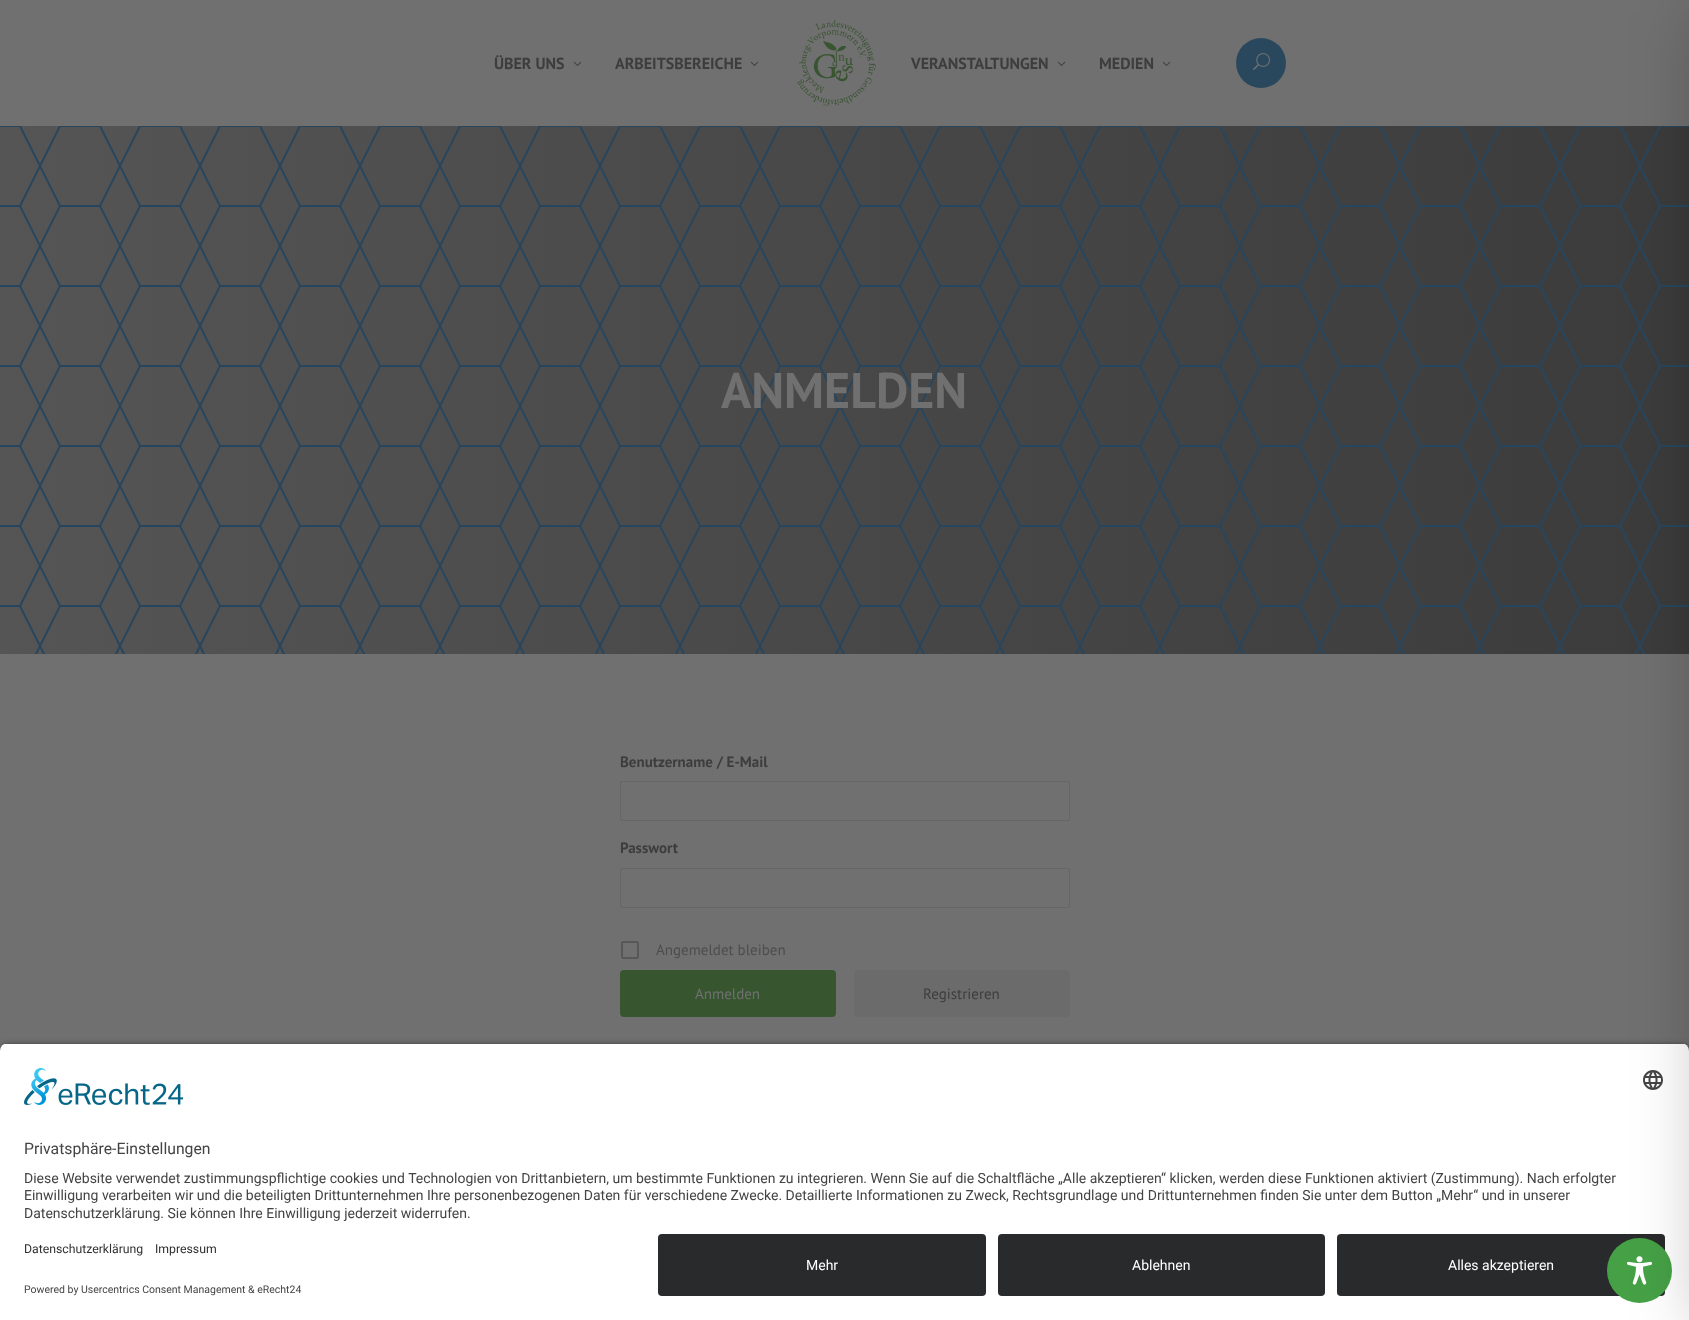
<!DOCTYPE html>
<meta charset="utf-8">
<style>body { margin: 0 } canvas { display: block }</style>
<canvas id="canvas" width="1689" height="1320"></canvas>
<img id="img1" src="images/1.png" hidden>
<img id="img2" src="images/2.png" hidden>
<img id="img3" src="images/3.png" hidden>
<img id="img4" src="images/4.png" hidden>
<img id="img5" src="images/5.png" hidden>
<img id="img6" src="images/7.png" hidden>
<img id="img7" src="images/8.png" hidden>
<img id="img8" src="images/6.png" hidden>
<script>
window.onload = function () {
    const canvas = document.getElementById('canvas');
    const context = canvas.getContext('2d');
    context.miterLimit = 4;
    context.fontKerning = 'normal';
    let gradient;

    context.fillStyle = 'rgb(112, 112, 112)';
    context.fillRect(0, 0, 1689, 1320);
    context.drawImage(document.getElementById('img1'), 573, 61, 9, 5);
    context.drawImage(document.getElementById('img1'), 750, 61, 9, 5);
    context.drawImage(document.getElementById('img2'), 797, 20, 79, 86);
    context.drawImage(document.getElementById('img1'), 1057, 61, 9, 5);
    context.drawImage(document.getElementById('img1'), 1162, 61, 9, 5);
    context.fillStyle = 'rgb(41, 72, 93)';
    context.beginPath();
    context.arc(1261, 63, 25, 0, 2 * Math.PI);
    context.fill();
    context.drawImage(document.getElementById('img3'), 1253, 53, 17, 18);
    gradient = context.createLinearGradient(0, 390, 1689, 390);
    gradient.addColorStop(0, 'rgb(85, 85, 85)');
    gradient.addColorStop(1, 'rgb(59, 59, 59)');
    context.fillStyle = gradient;
    context.fillRect(0, 126, 1689, 528);
    context.drawImage(document.getElementById('img4'), 0, 126, 1689, 528);
    context.beginPath();
    context.roundRect(620.5, 781.5, 449, 39, 1.5);
    context.strokeStyle = 'rgb(102, 102, 102)';
    context.stroke();
    context.beginPath();
    context.roundRect(620.5, 868.5, 449, 39, 1.5);
    context.stroke();
    context.drawImage(document.getElementById('img5'), 621, 941, 18, 18);
    context.fillStyle = 'rgb(55, 86, 48)';
    context.beginPath();
    context.roundRect(620, 970, 216, 47, 4);
    context.fill();
    context.fillStyle = 'rgb(107, 107, 107)';
    context.beginPath();
    context.roundRect(854, 970, 216, 47, 4);
    context.fill();
    context.fillStyle = 'rgba(0, 0, 0, 0.8)';
    context.filter = 'blur(3.5px)';
    context.beginPath();
    context.roundRect(0, 1046, 1689, 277, 8);
    context.fill();
    context.filter = 'none';
    context.save();
    context.beginPath();
    context.roundRect(0, 1043, 1689, 183, [8, 8, 0, 0]);
    context.clip();
    context.fillStyle = 'rgb(255, 255, 255)';
    context.fillRect(0, 1044, 1689, 182);
    context.restore();
    context.drawImage(document.getElementById('img6'), 1643, 1070, 20, 20);
    context.fillStyle = 'rgb(255, 255, 255)';
    context.fillRect(0, 1226, 1689, 94);
    context.fillStyle = 'rgb(41, 42, 43)';
    context.beginPath();
    context.roundRect(1337, 1234, 328, 62, 4);
    context.fill();
    context.fillStyle = 'rgb(70, 161, 70)';
    context.beginPath();
    context.arc(1639.5, 1270.5, 32.5, 0, 2 * Math.PI);
    context.fill();
    context.drawImage(document.getElementById('img7'), 1627, 1256, 25, 29);
    context.fillStyle = 'rgba(0, 0, 0, 0.2)';
    context.filter = 'blur(30px)';
    context.beginPath();
    context.rect(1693, 10, 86, 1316);
    context.fill();
    context.filter = 'none';
    context.drawImage(document.getElementById('img8'), 24, 1068, 160, 37);
    context.fillStyle = 'rgb(41, 42, 43)';
    context.beginPath();
    context.roundRect(658, 1234, 328, 62, 4);
    context.fill();
    context.beginPath();
    context.roundRect(998, 1234, 327, 62, 4);
    context.fill();
    context.font = 'bold 16px PT Sans';
    context.fillStyle = 'rgb(61, 61, 61)';
    context.fillText('ÜBER UNS', 494, 69);
    context.fillText('ARBEITSBEREICHE', 615, 69);
    context.fillText('VERANSTALTUNGEN', 911, 69);
    context.fillText('MEDIEN', 1099, 69);
    context.font = 'bold 50px PT Sans';
    context.fillStyle = 'rgb(112, 112, 112)';
    context.fillText('ANMELDEN', 721, 408);
    context.font = 'bold 15px PT Sans';
    context.fillStyle = 'rgb(61, 61, 61)';
    context.fillText('Benutzername / E-Mail', 620, 767);
    context.fillText('Passwort', 620, 853);
    context.font = '15px PT Sans';
    context.fillStyle = 'rgb(77, 77, 77)';
    context.fillText('Angemeldet bleiben', 656, 955);
    context.fillStyle = 'rgb(112, 112, 112)';
    context.fillText('Anmelden', 695, 999);
    context.fillStyle = 'rgb(61, 61, 61)';
    context.fillText('Registrieren', 923, 999);
    context.font = '15.75px Roboto';
    context.fillStyle = 'rgb(68, 68, 68)';
    context.fillText('Privatsphäre-Einstellungen', 24, 1154);
    context.font = '14px Roboto';
    context.fillText('Diese Website verwendet zustimmungspflichtige cookies und Technologien von Drittanbietern, um bestimmte Funktionen zu integrieren. Wenn Sie auf die Schaltfläche „Alle akzeptieren“ klicken, werden diese Funktionen aktiviert (Zustimmung). Nach erfolgter', 24, 1183);
    context.fillText('Einwilligung verarbeiten wir und die beteiligten Drittunternehmen Ihre personenbezogenen Daten für verschiedene Zwecke. Detaillierte Informationen zu Zweck, Rechtsgrundlage und Drittunternehmen finden Sie unter dem Button „Mehr“ und in unserer', 24, 1200);
    context.fillText('Datenschutzerklärung. Sie können Ihre Einwilligung jederzeit widerrufen.', 24, 1218);
    context.font = '12.25px Roboto';
    context.fillStyle = 'rgb(48, 48, 48)';
    context.fillText('Datenschutzerklärung', 24, 1253);
    context.fillText('Impressum', 155, 1253);
    context.font = '10.5px Roboto';
    context.fillStyle = 'rgb(68, 68, 68)';
    context.fillText('Powered by Usercentrics Consent Management & eRecht24', 24, 1293);
    context.font = '14px Roboto';
    context.fillStyle = 'rgb(255, 255, 255)';
    context.fillText('Mehr', 806, 1270);
    context.fillText('Ablehnen', 1132, 1270);
    context.fillText('Alles akzeptieren', 1448, 1270);
};
</script>
